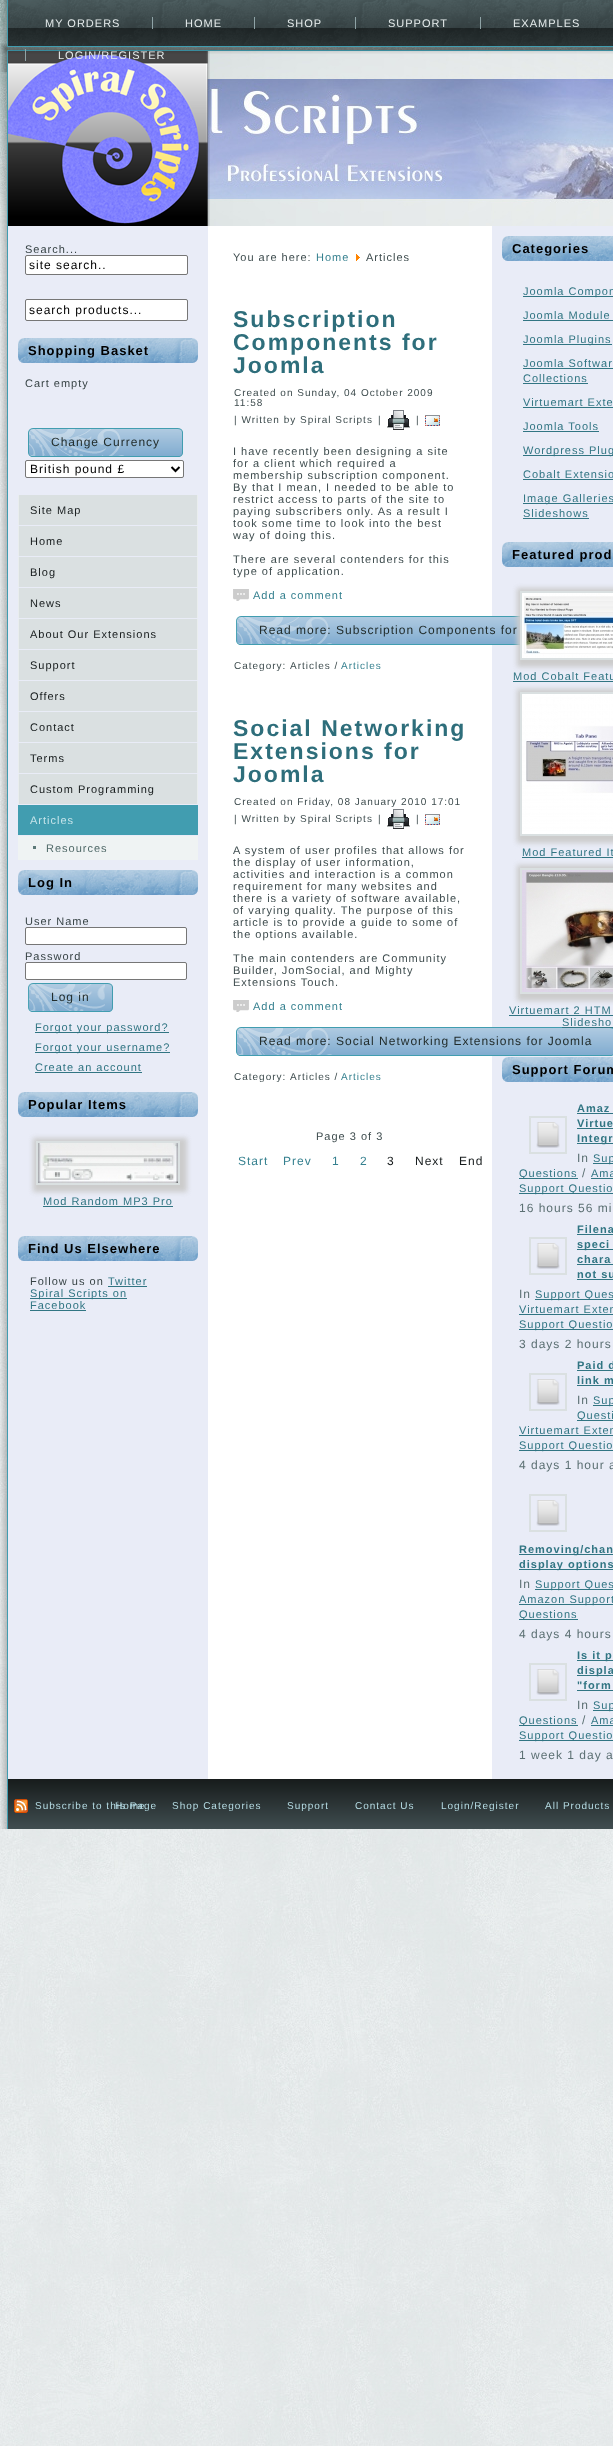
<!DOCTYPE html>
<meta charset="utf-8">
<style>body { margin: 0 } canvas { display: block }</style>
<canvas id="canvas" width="613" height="2446"></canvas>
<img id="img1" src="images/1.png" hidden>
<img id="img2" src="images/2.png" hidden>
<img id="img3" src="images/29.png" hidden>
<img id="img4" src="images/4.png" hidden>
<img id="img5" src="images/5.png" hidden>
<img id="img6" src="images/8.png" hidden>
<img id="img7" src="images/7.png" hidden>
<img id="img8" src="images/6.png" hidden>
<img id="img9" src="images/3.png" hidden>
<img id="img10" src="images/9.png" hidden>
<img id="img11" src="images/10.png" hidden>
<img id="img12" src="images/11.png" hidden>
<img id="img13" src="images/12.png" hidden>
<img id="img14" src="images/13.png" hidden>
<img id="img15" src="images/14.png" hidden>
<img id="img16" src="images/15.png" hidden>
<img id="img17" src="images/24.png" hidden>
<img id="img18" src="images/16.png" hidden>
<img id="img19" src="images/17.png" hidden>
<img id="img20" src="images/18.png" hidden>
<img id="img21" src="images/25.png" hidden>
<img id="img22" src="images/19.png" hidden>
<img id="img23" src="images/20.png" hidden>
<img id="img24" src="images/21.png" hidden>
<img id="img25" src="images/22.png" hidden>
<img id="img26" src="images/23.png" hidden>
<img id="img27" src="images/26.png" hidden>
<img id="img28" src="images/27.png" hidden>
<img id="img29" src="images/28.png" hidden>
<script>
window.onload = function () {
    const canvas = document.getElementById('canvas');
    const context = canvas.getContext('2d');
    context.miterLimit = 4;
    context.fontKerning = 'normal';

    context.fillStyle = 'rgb(255, 255, 255)';
    context.fillRect(0, 0, 613, 2446);
    context.drawImage(document.getElementById('img1'), 0, 250, 613, 2196);
    context.drawImage(document.getElementById('img2'), 0, 0, 613, 250);
    context.drawImage(document.getElementById('img3'), 89, 47, 443, 3);
    context.drawImage(document.getElementById('img4'), 0, 43, 613, 1786);
    context.drawImage(document.getElementById('img5'), 0, 43, 613, 29);
    context.drawImage(document.getElementById('img6'), 0, 72, 492, 1728);
    context.drawImage(document.getElementById('img7'), 207, 51, 406, 175);
    context.drawImage(document.getElementById('img8'), 8, 51, 202, 175);
    context.drawImage(document.getElementById('img9'), 0, 0, 613, 54);
    context.fillStyle = 'rgb(143, 163, 166)';
    context.fillRect(152, 17, 1, 12);
    context.fillRect(254, 17, 1, 12);
    context.fillRect(355, 17, 1, 12);
    context.fillRect(480, 17, 1, 12);
    context.fillRect(25, 49, 1, 12);
    context.fillStyle = 'rgb(233, 236, 247)';
    context.fillRect(8, 226, 200, 1553);
    context.fillStyle = 'rgb(255, 255, 255)';
    context.beginPath();
    context.roundRect(25.5, 255.5, 162, 19, 1.5);
    context.fill();
    context.strokeStyle = 'rgb(118, 118, 118)';
    context.stroke();
    context.beginPath();
    context.roundRect(25.5, 299.5, 162, 21, 1.5);
    context.fill();
    context.stroke();
    context.drawImage(document.getElementById('img10'), 18, 338, 174, 25);
    context.drawImage(document.getElementById('img11'), 192, 338, 6, 25);
    context.drawImage(document.getElementById('img12'), 28, 428, 147, 29);
    context.drawImage(document.getElementById('img13'), 175, 428, 8, 29);
    context.beginPath();
    context.roundRect(25.5, 460.5, 158, 17, 1.5);
    context.fill();
    context.stroke();
    context.beginPath();
    context.moveTo(171.5, 467);
    context.lineTo(175.5, 471);
    context.lineTo(179.5, 467);
    context.strokeStyle = 'rgb(0, 0, 0)';
    context.lineWidth = 2;
    context.stroke();
    context.fillStyle = 'rgb(233, 237, 238)';
    context.fillRect(197, 495, 1, 30);
    context.fillRect(18, 495, 1, 30);
    context.fillStyle = 'rgb(218, 224, 225)';
    context.fillRect(19, 495, 178, 30);
    context.fillStyle = 'rgb(233, 237, 238)';
    context.fillRect(197, 526, 1, 30);
    context.fillRect(18, 526, 1, 30);
    context.fillStyle = 'rgb(218, 224, 225)';
    context.fillRect(19, 526, 178, 30);
    context.fillStyle = 'rgb(233, 237, 238)';
    context.fillRect(197, 557, 1, 30);
    context.fillRect(18, 557, 1, 30);
    context.fillStyle = 'rgb(218, 224, 225)';
    context.fillRect(19, 557, 178, 30);
    context.fillStyle = 'rgb(233, 237, 238)';
    context.fillRect(197, 588, 1, 30);
    context.fillRect(18, 588, 1, 30);
    context.fillStyle = 'rgb(218, 224, 225)';
    context.fillRect(19, 588, 178, 30);
    context.fillStyle = 'rgb(233, 237, 238)';
    context.fillRect(197, 619, 1, 30);
    context.fillRect(18, 619, 1, 30);
    context.fillStyle = 'rgb(218, 224, 225)';
    context.fillRect(19, 619, 178, 30);
    context.fillStyle = 'rgb(233, 237, 238)';
    context.fillRect(197, 650, 1, 30);
    context.fillRect(18, 650, 1, 30);
    context.fillStyle = 'rgb(218, 224, 225)';
    context.fillRect(19, 650, 178, 30);
    context.fillStyle = 'rgb(233, 237, 238)';
    context.fillRect(197, 681, 1, 30);
    context.fillRect(18, 681, 1, 30);
    context.fillStyle = 'rgb(218, 224, 225)';
    context.fillRect(19, 681, 178, 30);
    context.fillStyle = 'rgb(233, 237, 238)';
    context.fillRect(197, 712, 1, 30);
    context.fillRect(18, 712, 1, 30);
    context.fillStyle = 'rgb(218, 224, 225)';
    context.fillRect(19, 712, 178, 30);
    context.fillStyle = 'rgb(233, 237, 238)';
    context.fillRect(197, 743, 1, 30);
    context.fillRect(18, 743, 1, 30);
    context.fillStyle = 'rgb(218, 224, 225)';
    context.fillRect(19, 743, 178, 30);
    context.fillStyle = 'rgb(233, 237, 238)';
    context.fillRect(197, 774, 1, 30);
    context.fillRect(18, 774, 1, 30);
    context.fillStyle = 'rgb(218, 224, 225)';
    context.fillRect(19, 774, 178, 30);
    context.fillStyle = 'rgb(65, 157, 176)';
    context.fillRect(197, 805, 1, 30);
    context.fillRect(18, 805, 179, 30);
    context.fillStyle = 'rgb(239, 243, 243)';
    context.fillRect(18, 836, 180, 24);
    context.fillStyle = 'rgb(92, 121, 120)';
    context.fillRect(33, 846, 3, 3);
    context.drawImage(document.getElementById('img10'), 18, 870, 174, 25);
    context.drawImage(document.getElementById('img11'), 192, 870, 6, 25);
    context.fillStyle = 'rgb(255, 255, 255)';
    context.beginPath();
    context.roundRect(25.5, 927.5, 161, 17, 1.5);
    context.fill();
    context.strokeStyle = 'rgb(118, 118, 118)';
    context.lineWidth = 1;
    context.stroke();
    context.beginPath();
    context.roundRect(25.5, 962.5, 161, 17, 1.5);
    context.fill();
    context.stroke();
    context.drawImage(document.getElementById('img14'), 28, 983, 77, 29);
    context.drawImage(document.getElementById('img13'), 105, 983, 8, 29);
    context.fillStyle = 'rgb(49, 117, 131)';
    context.fillRect(35, 1032, 134, 1);
    context.fillRect(35, 1052, 135, 1);
    context.fillRect(35, 1072, 107, 1);
    context.drawImage(document.getElementById('img10'), 18, 1092, 174, 25);
    context.drawImage(document.getElementById('img11'), 192, 1092, 6, 25);
    context.fillStyle = 'rgb(204, 204, 204)';
    context.filter = 'blur(2.5px)';
    context.beginPath();
    context.rect(33, 1138, 154, 54);
    context.fill();
    context.filter = 'none';
    context.strokeStyle = 'rgb(218, 224, 225)';
    context.lineWidth = 2;
    context.strokeRect(37, 1142, 142, 42);
    context.drawImage(document.getElementById('img15'), 38, 1143, 140, 40);
    context.fillStyle = 'rgb(49, 117, 131)';
    context.fillRect(43, 1206, 130, 1);
    context.drawImage(document.getElementById('img10'), 18, 1236, 174, 25);
    context.drawImage(document.getElementById('img11'), 192, 1236, 6, 25);
    context.fillRect(108, 1286, 39, 1);
    context.fillRect(30, 1298, 97, 1);
    context.fillRect(30, 1310, 56, 1);
    context.fillStyle = 'rgb(233, 236, 247)';
    context.fillRect(492, 226, 121, 1553);
    context.drawImage(document.getElementById('img16'), 502, 236, 111, 25);
    context.fillStyle = 'rgb(49, 117, 131)';
    context.fillRect(523, 296, 90, 1);
    context.fillRect(523, 320, 90, 1);
    context.fillRect(523, 344, 89, 1);
    context.fillRect(523, 368, 90, 1);
    context.fillRect(523, 383, 65, 1);
    context.fillRect(523, 407, 90, 1);
    context.fillRect(523, 431, 76, 1);
    context.fillRect(523, 455, 90, 1);
    context.fillRect(523, 479, 90, 1);
    context.fillRect(523, 503, 90, 1);
    context.fillRect(523, 518, 66, 1);
    context.drawImage(document.getElementById('img16'), 502, 542, 111, 25);
    context.drawImage(document.getElementById('img17'), 236, 616, 284, 29);
    context.fillStyle = 'rgb(204, 204, 204)';
    context.filter = 'blur(2.5px)';
    context.beginPath();
    context.rect(517, 588, 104, 79);
    context.fill();
    context.filter = 'none';
    context.strokeRect(521, 592, 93, 67);
    context.drawImage(document.getElementById('img18'), 522, 593, 91, 65);
    context.fillStyle = 'rgb(49, 117, 131)';
    context.fillRect(513, 681, 100, 1);
    context.fillStyle = 'rgb(204, 204, 204)';
    context.filter = 'blur(2.5px)';
    context.beginPath();
    context.rect(517, 689, 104, 154);
    context.fill();
    context.filter = 'none';
    context.strokeRect(521, 693, 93, 142);
    context.drawImage(document.getElementById('img19'), 522, 694, 91, 140);
    context.fillStyle = 'rgb(49, 117, 131)';
    context.fillRect(522, 857, 91, 1);
    context.fillStyle = 'rgb(204, 204, 204)';
    context.filter = 'blur(2.5px)';
    context.beginPath();
    context.rect(517, 865, 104, 136);
    context.fill();
    context.filter = 'none';
    context.strokeRect(521, 869, 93, 124);
    context.drawImage(document.getElementById('img20'), 522, 870, 91, 122);
    context.fillStyle = 'rgb(49, 117, 131)';
    context.fillRect(509, 1015, 104, 1);
    context.drawImage(document.getElementById('img21'), 236, 1027, 371, 29);
    context.fillRect(562, 1027, 51, 1);
    context.drawImage(document.getElementById('img16'), 502, 1057, 111, 25);
    context.strokeRect(530, 1117, 36, 36);
    context.drawImage(document.getElementById('img22'), 536, 1122, 24, 26);
    context.fillRect(577, 1113, 36, 1);
    context.fillRect(577, 1128, 36, 1);
    context.fillRect(577, 1143, 36, 1);
    context.fillRect(593, 1163, 20, 1);
    context.fillRect(519, 1178, 59, 1);
    context.fillRect(591, 1178, 22, 1);
    context.fillRect(519, 1193, 94, 1);
    context.strokeRect(530, 1238, 36, 36);
    context.drawImage(document.getElementById('img22'), 536, 1243, 24, 26);
    context.fillRect(577, 1234, 36, 1);
    context.fillRect(577, 1249, 36, 1);
    context.fillRect(577, 1264, 36, 1);
    context.fillRect(577, 1279, 36, 1);
    context.fillRect(535, 1299, 78, 1);
    context.fillRect(519, 1314, 94, 1);
    context.fillRect(519, 1329, 94, 1);
    context.strokeRect(530, 1374, 36, 36);
    context.drawImage(document.getElementById('img22'), 536, 1379, 24, 26);
    context.fillRect(577, 1370, 36, 1);
    context.fillRect(577, 1385, 36, 1);
    context.fillRect(593, 1405, 20, 1);
    context.fillRect(577, 1420, 36, 1);
    context.fillRect(519, 1435, 94, 1);
    context.fillRect(519, 1450, 94, 1);
    context.strokeRect(530, 1495, 36, 36);
    context.drawImage(document.getElementById('img22'), 536, 1500, 24, 26);
    context.fillRect(519, 1554, 94, 1);
    context.fillRect(519, 1569, 94, 1);
    context.fillRect(535, 1589, 78, 1);
    context.fillRect(519, 1604, 94, 1);
    context.fillRect(519, 1619, 59, 1);
    context.strokeRect(530, 1664, 36, 36);
    context.drawImage(document.getElementById('img22'), 536, 1669, 24, 26);
    context.fillRect(577, 1660, 36, 1);
    context.fillRect(577, 1675, 36, 1);
    context.fillRect(577, 1690, 36, 1);
    context.fillRect(593, 1710, 20, 1);
    context.fillRect(519, 1725, 59, 1);
    context.fillRect(591, 1725, 22, 1);
    context.fillRect(519, 1740, 94, 1);
    context.drawImage(document.getElementById('img23'), 356, 254, 4, 7);
    context.drawImage(document.getElementById('img24'), 387, 410, 23, 20);
    context.drawImage(document.getElementById('img25'), 425, 415, 15, 11);
    context.drawImage(document.getElementById('img26'), 233, 589, 16, 12);
    context.drawImage(document.getElementById('img24'), 387, 809, 23, 20);
    context.drawImage(document.getElementById('img25'), 425, 814, 15, 11);
    context.drawImage(document.getElementById('img26'), 233, 1000, 16, 12);
    context.drawImage(document.getElementById('img27'), 607, 1028, 6, 28);
    context.drawImage(document.getElementById('img28'), 8, 1779, 605, 50);
    context.drawImage(document.getElementById('img29'), 14, 1799, 14, 14);
    context.letterSpacing = '1px';
    context.font = '11px Liberation Sans';
    context.fillStyle = 'rgb(230, 236, 236)';
    context.fillText('MY ORDERS', 45, 27);
    context.fillText('HOME', 185, 27);
    context.fillText('SHOP', 287, 27);
    context.fillText('SUPPORT', 388, 27);
    context.fillText('EXAMPLES', 513, 27);
    context.fillText('LOGIN/REGISTER', 58, 59);
    context.fillStyle = 'rgb(55, 67, 69)';
    context.fillText('Search...', 25, 253);
    context.font = '12px Liberation Sans';
    context.fillStyle = 'rgb(0, 0, 0)';
    context.fillText('site search..', 29, 269);
    context.fillText('search products...', 29, 314);
    context.font = 'bold 13px Liberation Sans';
    context.fillText('Shopping Basket', 28, 355);
    context.font = '11px Liberation Sans';
    context.fillStyle = 'rgb(55, 67, 69)';
    context.fillText('Cart empty', 25, 387);
    context.font = '12px Liberation Sans';
    context.fillStyle = 'rgb(34, 45, 44)';
    context.fillText('Change Currency', 51, 446);
    context.fillStyle = 'rgb(0, 0, 0)';
    context.fillText('British pound £', 30, 473);
    context.font = '11px Liberation Sans';
    context.fillStyle = 'rgb(22, 27, 28)';
    context.fillText('Site Map', 30, 514);
    context.fillText('Home', 30, 545);
    context.fillText('Blog', 30, 576);
    context.fillText('News', 30, 607);
    context.fillText('About Our Extensions', 30, 638);
    context.fillText('Support', 30, 669);
    context.fillText('Offers', 30, 700);
    context.fillText('Contact', 30, 731);
    context.fillText('Terms', 30, 762);
    context.fillText('Custom Programming', 30, 793);
    context.fillStyle = 'rgb(198, 228, 234)';
    context.fillText('Articles', 30, 824);
    context.fillStyle = 'rgb(80, 105, 104)';
    context.fillText('Resources', 46, 852);
    context.font = 'bold 13px Liberation Sans';
    context.fillStyle = 'rgb(0, 0, 0)';
    context.fillText('Log In', 28, 887);
    context.font = '11px Liberation Sans';
    context.fillStyle = 'rgb(55, 67, 69)';
    context.fillText('User Name', 25, 925);
    context.fillText('Password', 25, 960);
    context.font = '12px Liberation Sans';
    context.fillStyle = 'rgb(34, 45, 44)';
    context.fillText('Log in', 51, 1001);
    context.font = '11px Liberation Sans';
    context.fillStyle = 'rgb(49, 117, 131)';
    context.fillText('Forgot your password?', 35, 1031);
    context.fillText('Forgot your username?', 35, 1051);
    context.fillText('Create an account', 35, 1071);
    context.font = 'bold 13px Liberation Sans';
    context.fillStyle = 'rgb(0, 0, 0)';
    context.fillText('Popular Items', 28, 1109);
    context.font = '11px Liberation Sans';
    context.fillStyle = 'rgb(49, 117, 131)';
    context.fillText('Mod Random MP3 Pro', 43, 1205);
    context.font = 'bold 13px Liberation Sans';
    context.fillStyle = 'rgb(0, 0, 0)';
    context.fillText('Find Us Elsewhere', 28, 1253);
    context.font = '11px Liberation Sans';
    context.fillStyle = 'rgb(55, 67, 69)';
    context.fillText('Follow us on', 30, 1285);
    context.fillStyle = 'rgb(49, 117, 131)';
    context.fillText('Twitter', 108, 1285);
    context.fillText('Spiral Scripts on', 30, 1297);
    context.fillText('Facebook', 30, 1309);
    context.font = 'bold 13px Liberation Sans';
    context.fillStyle = 'rgb(0, 0, 0)';
    context.fillText('Categories', 512, 253);
    context.font = '11px Liberation Sans';
    context.fillStyle = 'rgb(49, 117, 131)';
    context.fillText('Joomla Compon', 523, 295);
    context.fillText('Joomla Module', 523, 319);
    context.fillText('Joomla Plugins', 523, 343);
    context.fillText('Joomla Softwar', 523, 367);
    context.fillText('Collections', 523, 382);
    context.fillText('Virtuemart Exte', 523, 406);
    context.fillText('Joomla Tools', 523, 430);
    context.fillText('Wordpress Plug', 523, 454);
    context.fillText('Cobalt Extensio', 523, 478);
    context.fillText('Image Galleries', 523, 502);
    context.fillText('Slideshows', 523, 517);
    context.font = 'bold 13px Liberation Sans';
    context.fillStyle = 'rgb(0, 0, 0)';
    context.fillText('Featured prod', 512, 559);
    context.font = '11px Liberation Sans';
    context.fillStyle = 'rgb(49, 117, 131)';
    context.fillText('Mod Cobalt Featu', 513, 680);
    context.fillText('Mod Featured It', 522, 856);
    context.fillText('Virtuemart 2 HTM', 509, 1014);
    context.fillText('Slidesho', 562, 1026);
    context.font = 'bold 13px Liberation Sans';
    context.fillStyle = 'rgb(0, 0, 0)';
    context.fillText('Support Forum', 512, 1074);
    context.font = 'bold 11px Liberation Sans';
    context.fillStyle = 'rgb(49, 117, 131)';
    context.fillText('Amaz', 577, 1112);
    context.fillText('Virtue', 577, 1127);
    context.fillText('Integr', 577, 1142);
    context.font = '12px Liberation Sans';
    context.fillStyle = 'rgb(92, 112, 115)';
    context.fillText('In', 577, 1162);
    context.font = '11px Liberation Sans';
    context.fillStyle = 'rgb(49, 117, 131)';
    context.fillText('Sup', 593, 1162);
    context.fillText('Questions', 519, 1177);
    context.font = '12px Liberation Sans';
    context.fillStyle = 'rgb(92, 112, 115)';
    context.fillText('/', 582, 1177);
    context.font = '11px Liberation Sans';
    context.fillStyle = 'rgb(49, 117, 131)';
    context.fillText('Ama', 591, 1177);
    context.fillText('Support Questio', 519, 1192);
    context.font = '12px Liberation Sans';
    context.fillStyle = 'rgb(92, 112, 115)';
    context.fillText('16 hours 56 mi', 519, 1212);
    context.font = 'bold 11px Liberation Sans';
    context.fillStyle = 'rgb(49, 117, 131)';
    context.fillText('Filena', 577, 1233);
    context.fillText('speci', 577, 1248);
    context.fillText('chara', 577, 1263);
    context.fillText('not su', 577, 1278);
    context.font = '12px Liberation Sans';
    context.fillStyle = 'rgb(92, 112, 115)';
    context.fillText('In', 519, 1298);
    context.font = '11px Liberation Sans';
    context.fillStyle = 'rgb(49, 117, 131)';
    context.fillText('Support Ques', 535, 1298);
    context.fillText('Virtuemart Exten', 519, 1313);
    context.fillText('Support Questio', 519, 1328);
    context.font = '12px Liberation Sans';
    context.fillStyle = 'rgb(92, 112, 115)';
    context.fillText('3 days 2 hours', 519, 1348);
    context.font = 'bold 11px Liberation Sans';
    context.fillStyle = 'rgb(49, 117, 131)';
    context.fillText('Paid d', 577, 1369);
    context.fillText('link m', 577, 1384);
    context.font = '12px Liberation Sans';
    context.fillStyle = 'rgb(92, 112, 115)';
    context.fillText('In', 577, 1404);
    context.font = '11px Liberation Sans';
    context.fillStyle = 'rgb(49, 117, 131)';
    context.fillText('Sup', 593, 1404);
    context.fillText('Questi', 577, 1419);
    context.fillText('Virtuemart Exten', 519, 1434);
    context.fillText('Support Questio', 519, 1449);
    context.font = '12px Liberation Sans';
    context.fillStyle = 'rgb(92, 112, 115)';
    context.fillText('4 days 1 hour a', 519, 1469);
    context.font = 'bold 11px Liberation Sans';
    context.fillStyle = 'rgb(49, 117, 131)';
    context.fillText('Removing/chan', 519, 1553);
    context.fillText('display options', 519, 1568);
    context.font = '12px Liberation Sans';
    context.fillStyle = 'rgb(92, 112, 115)';
    context.fillText('In', 519, 1588);
    context.font = '11px Liberation Sans';
    context.fillStyle = 'rgb(49, 117, 131)';
    context.fillText('Support Ques', 535, 1588);
    context.fillText('Amazon Support', 519, 1603);
    context.fillText('Questions', 519, 1618);
    context.font = '12px Liberation Sans';
    context.fillStyle = 'rgb(92, 112, 115)';
    context.fillText('4 days 4 hours', 519, 1638);
    context.font = 'bold 11px Liberation Sans';
    context.fillStyle = 'rgb(49, 117, 131)';
    context.fillText('Is it p', 577, 1659);
    context.fillText('displa', 577, 1674);
    context.fillText('"form', 577, 1689);
    context.font = '12px Liberation Sans';
    context.fillStyle = 'rgb(92, 112, 115)';
    context.fillText('In', 577, 1709);
    context.font = '11px Liberation Sans';
    context.fillStyle = 'rgb(49, 117, 131)';
    context.fillText('Sup', 593, 1709);
    context.fillText('Questions', 519, 1724);
    context.font = '12px Liberation Sans';
    context.fillStyle = 'rgb(92, 112, 115)';
    context.fillText('/', 582, 1724);
    context.font = '11px Liberation Sans';
    context.fillStyle = 'rgb(49, 117, 131)';
    context.fillText('Ama', 591, 1724);
    context.fillText('Support Questio', 519, 1739);
    context.font = '12px Liberation Sans';
    context.fillStyle = 'rgb(92, 112, 115)';
    context.fillText('1 week 1 day a', 519, 1759);
    context.font = '11px Liberation Sans';
    context.fillStyle = 'rgb(62, 76, 78)';
    context.fillText('You are here:', 233, 261);
    context.fillStyle = 'rgb(53, 128, 143)';
    context.fillText('Home', 316, 261);
    context.fillStyle = 'rgb(62, 76, 78)';
    context.fillText('Articles', 366, 261);
    context.letterSpacing = '2px';
    context.font = 'bold 23px Liberation Sans';
    context.fillStyle = 'rgb(46, 110, 123)';
    context.fillText('Subscription', 233, 327);
    context.fillText('Components for', 233, 350);
    context.fillText('Joomla', 233, 373);
    context.letterSpacing = '1px';
    context.font = '10px Liberation Sans';
    context.fillStyle = 'rgb(62, 76, 78)';
    context.fillText('Created on Sunday, 04 October 2009', 234, 396);
    context.fillText('11:58', 234, 406);
    context.fillText('| Written by Spiral Scripts', 234, 423);
    context.fillText('|', 378, 423);
    context.fillText('|', 416, 423);
    context.font = '11px Liberation Sans';
    context.fillText('I have recently been designing a site', 233, 455);
    context.fillText('for a client which required a', 233, 467);
    context.fillText('membership subscription component.', 233, 479);
    context.fillText('By that I mean, I needed to be able to', 233, 491);
    context.fillText('restrict access to parts of the site to', 233, 503);
    context.fillText('paying subscribers only. As a result I', 233, 515);
    context.fillText('took some time to look into the best', 233, 527);
    context.fillText('way of doing this.', 233, 539);
    context.fillText('There are several contenders for this', 233, 563);
    context.fillText('type of application.', 233, 575);
    context.fillStyle = 'rgb(53, 128, 143)';
    context.fillText('Add a comment', 253, 599);
    context.font = '12px Liberation Sans';
    context.fillStyle = 'rgb(34, 45, 44)';
    context.fillText('Read more: Subscription Components for', 259, 634);
    context.font = '10px Liberation Sans';
    context.fillStyle = 'rgb(62, 76, 78)';
    context.fillText('Category:', 234, 669);
    context.fillText('Articles /', 290, 669);
    context.fillStyle = 'rgb(53, 128, 143)';
    context.fillText('Articles', 341, 669);
    context.letterSpacing = '2px';
    context.font = 'bold 23px Liberation Sans';
    context.fillStyle = 'rgb(46, 110, 123)';
    context.fillText('Social Networking', 233, 736);
    context.fillText('Extensions for', 233, 759);
    context.fillText('Joomla', 233, 782);
    context.letterSpacing = '1px';
    context.font = '10px Liberation Sans';
    context.fillStyle = 'rgb(62, 76, 78)';
    context.fillText('Created on Friday, 08 January 2010 17:01', 234, 805);
    context.fillText('| Written by Spiral Scripts', 234, 822);
    context.fillText('|', 378, 822);
    context.fillText('|', 416, 822);
    context.font = '11px Liberation Sans';
    context.fillText('A system of user profiles that allows for', 233, 854);
    context.fillText('the display of user information,', 233, 866);
    context.fillText('activities and interaction is a common', 233, 878);
    context.fillText('requirement for many websites and', 233, 890);
    context.fillText('there is a variety of software available,', 233, 902);
    context.fillText('of varying quality. The purpose of this', 233, 914);
    context.fillText('article is to provide a guide to some of', 233, 926);
    context.fillText('the options available.', 233, 938);
    context.fillText('The main contenders are Community', 233, 962);
    context.fillText('Builder, JomSocial, and Mighty', 233, 974);
    context.fillText('Extensions Touch.', 233, 986);
    context.fillStyle = 'rgb(53, 128, 143)';
    context.fillText('Add a comment', 253, 1010);
    context.font = '12px Liberation Sans';
    context.fillStyle = 'rgb(34, 45, 44)';
    context.fillText('Read more: Social Networking Extensions for Joomla', 259, 1045);
    context.font = '10px Liberation Sans';
    context.fillStyle = 'rgb(62, 76, 78)';
    context.fillText('Category:', 234, 1080);
    context.fillText('Articles /', 290, 1080);
    context.fillStyle = 'rgb(53, 128, 143)';
    context.fillText('Articles', 341, 1080);
    context.font = '11px Liberation Sans';
    context.fillStyle = 'rgb(62, 76, 78)';
    context.fillText('Page 3 of 3', 316, 1140);
    context.font = '12px Liberation Sans';
    context.fillStyle = 'rgb(53, 128, 143)';
    context.fillText('Start', 238, 1165);
    context.fillText('Prev', 283, 1165);
    context.fillText('1', 332, 1165);
    context.fillText('2', 360, 1165);
    context.fillStyle = 'rgb(22, 27, 28)';
    context.fillText('3', 387, 1165);
    context.fillText('Next', 415, 1165);
    context.fillText('End', 459, 1165);
    context.font = '10px Liberation Sans';
    context.fillStyle = 'rgb(182, 220, 228)';
    context.fillText('Home', 115, 1809);
    context.fillText('Subscribe to this Page', 35, 1809);
    context.fillText('Shop Categories', 172, 1809);
    context.fillText('Support', 287, 1809);
    context.fillText('Contact Us', 355, 1809);
    context.fillText('Login/Register', 441, 1809);
    context.fillText('All Products', 545, 1809);
};
</script>
